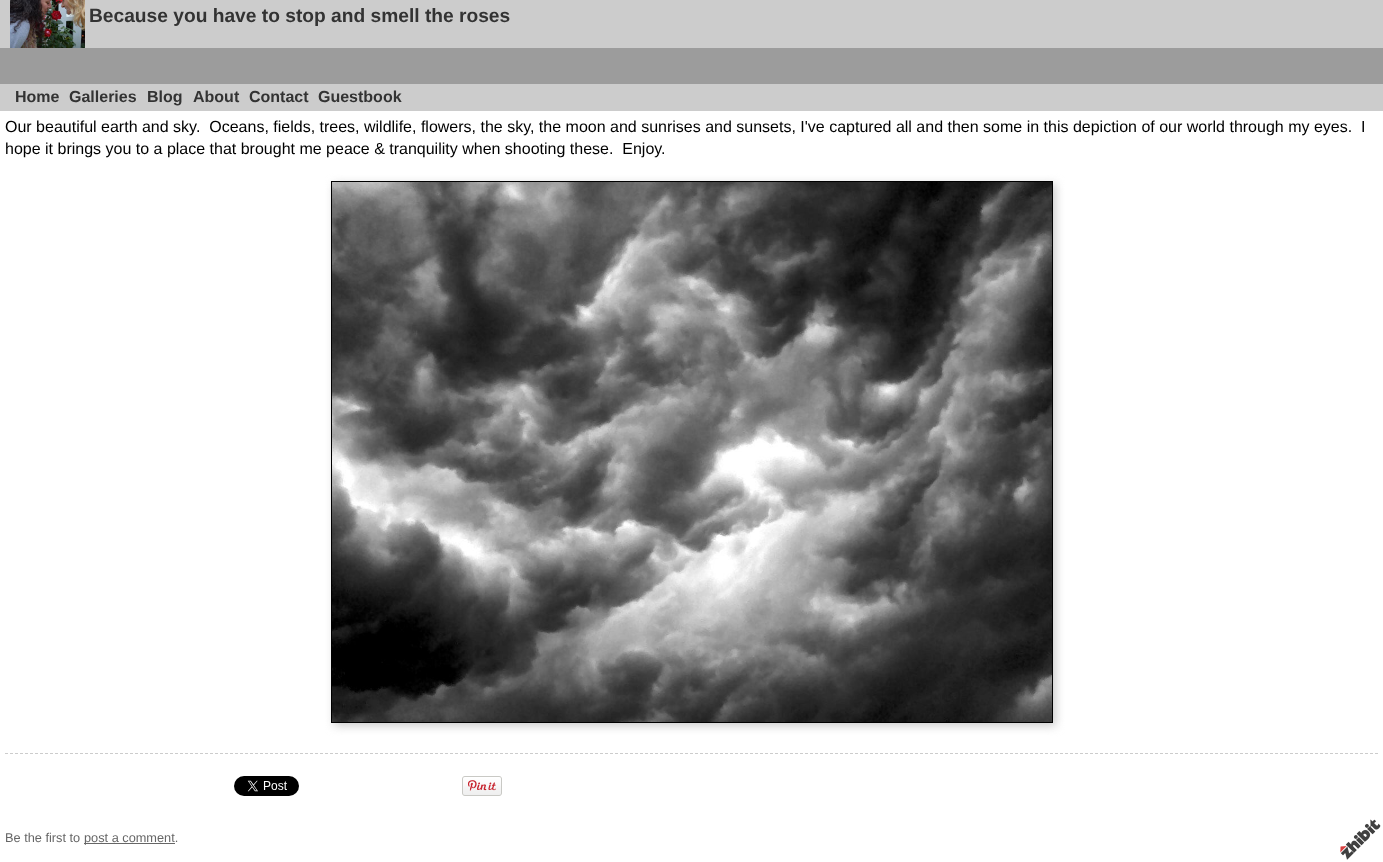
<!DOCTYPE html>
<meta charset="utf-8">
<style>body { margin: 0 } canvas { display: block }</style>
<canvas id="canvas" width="1383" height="862"></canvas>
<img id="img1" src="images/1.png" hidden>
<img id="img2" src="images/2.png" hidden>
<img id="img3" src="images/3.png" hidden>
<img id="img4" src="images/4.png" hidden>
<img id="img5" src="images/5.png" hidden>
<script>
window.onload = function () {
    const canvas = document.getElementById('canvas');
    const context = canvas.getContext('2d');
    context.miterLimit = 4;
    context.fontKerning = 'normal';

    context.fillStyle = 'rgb(204, 204, 204)';
    context.fillRect(0, 0, 1383, 862);
    context.drawImage(document.getElementById('img1'), 10, 0, 75, 48);
    context.fillStyle = 'rgb(156, 156, 156)';
    context.fillRect(0, 48, 1383, 36);
    context.fillStyle = 'rgb(255, 255, 255)';
    context.fillRect(0, 111, 1383, 751);
    context.fillStyle = 'rgb(204, 204, 204)';
    context.filter = 'blur(5px)';
    context.beginPath();
    context.rect(334, 184, 722, 542);
    context.fill();
    context.filter = 'none';
    context.strokeStyle = 'rgb(0, 0, 0)';
    context.strokeRect(331.5, 181.5, 721, 541);
    context.drawImage(document.getElementById('img2'), 332, 182, 720, 540);
    context.beginPath();
    context.moveTo(5, 753.5);
    context.lineTo(1378, 753.5);
    context.strokeStyle = 'rgb(204, 204, 204)';
    context.setLineDash([3, 2]);
    context.stroke();
    context.drawImage(document.getElementById('img3'), 234, 776, 65, 20);
    context.drawImage(document.getElementById('img4'), 462, 776, 40, 20);
    context.fillStyle = 'rgb(102, 102, 102)';
    context.fillRect(84, 843, 91, 1);
    context.drawImage(document.getElementById('img5'), 1340, 819, 41, 41);
    context.font = 'bold 19.2px Liberation Sans';
    context.fillStyle = 'rgb(51, 51, 51)';
    context.fillText('Because you have to stop and smell the roses', 89, 22);
    context.font = 'bold 16px Liberation Sans';
    context.fillText('Home', 15, 102);
    context.fillText('Galleries', 69, 102);
    context.fillText('Blog', 147, 102);
    context.fillText('About', 193, 102);
    context.fillText('Contact', 249, 102);
    context.fillText('Guestbook', 318, 102);
    context.font = '16px Liberation Sans';
    context.fillStyle = 'rgb(0, 0, 0)';
    context.fillText('Our beautiful earth and sky.  Oceans, fields, trees, wildlife, flowers, the sky, the moon and sunrises and sunsets, I\'ve captured all and then some in this depiction of our world through my eyes.  I', 5, 132);
    context.fillText('hope it brings you to a place that brought me peace & tranquility when shooting these.  Enjoy.', 5, 154);
    context.font = '12.75px Liberation Sans';
    context.fillStyle = 'rgb(102, 102, 102)';
    context.fillText('Be the first to', 5, 842);
    context.fillText('post a comment.', 84, 842);
};
</script>
